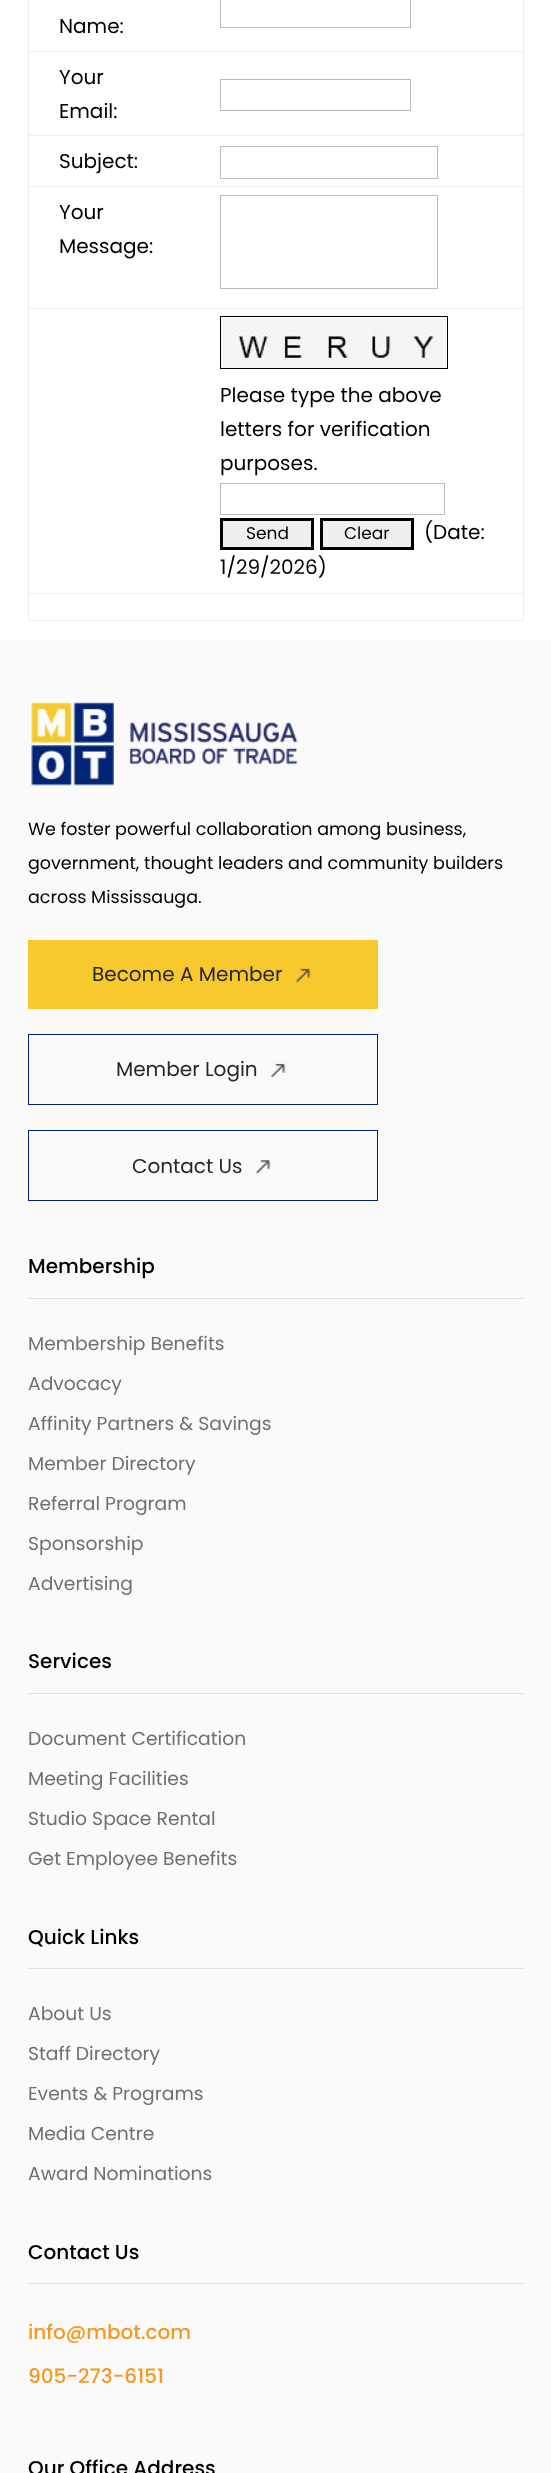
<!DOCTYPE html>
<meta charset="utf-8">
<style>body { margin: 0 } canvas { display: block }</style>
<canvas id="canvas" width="551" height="2473"></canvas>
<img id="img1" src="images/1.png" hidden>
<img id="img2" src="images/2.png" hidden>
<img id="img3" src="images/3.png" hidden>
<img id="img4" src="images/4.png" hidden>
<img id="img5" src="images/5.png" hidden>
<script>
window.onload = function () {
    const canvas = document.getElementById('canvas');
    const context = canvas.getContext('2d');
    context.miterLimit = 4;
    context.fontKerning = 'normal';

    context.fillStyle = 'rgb(255, 255, 255)';
    context.fillRect(0, 0, 551, 2473);
    context.fillStyle = 'rgb(238, 238, 238)';
    context.fillRect(523, 0, 1, 621);
    context.fillRect(28, 620, 496, 1);
    context.fillRect(28, 0, 1, 621);
    context.strokeStyle = 'rgb(187, 187, 187)';
    context.strokeRect(220.5, -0.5, 190, 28);
    context.fillRect(28, 51, 496, 1);
    context.strokeRect(220.5, 79.5, 190, 31);
    context.fillRect(28, 135, 496, 1);
    context.strokeRect(220.5, 146.5, 217, 32);
    context.fillRect(28, 186, 496, 1);
    context.strokeRect(220.5, 195.5, 217, 93);
    context.fillRect(28, 308, 496, 1);
    context.strokeStyle = 'rgb(0, 0, 0)';
    context.strokeRect(220.5, 316.5, 227, 52);
    context.drawImage(document.getElementById('img1'), 221, 318, 225, 50);
    context.strokeStyle = 'rgb(187, 187, 187)';
    context.strokeRect(220.5, 483.5, 224, 31);
    context.fillStyle = 'rgb(239, 239, 239)';
    context.beginPath();
    context.rect(221.5, 519.5, 91, 29);
    context.fill();
    context.strokeStyle = 'rgb(0, 0, 0)';
    context.lineWidth = 3;
    context.stroke();
    context.beginPath();
    context.rect(321.5, 519.5, 91, 29);
    context.fill();
    context.stroke();
    context.fillStyle = 'rgb(238, 238, 238)';
    context.fillRect(28, 593, 496, 1);
    context.fillStyle = 'rgb(250, 250, 250)';
    context.fillRect(0, 640, 551, 1833);
    context.drawImage(document.getElementById('img2'), 31, 699, 267, 87);
    context.fillStyle = 'rgb(247, 201, 44)';
    context.fillRect(28, 940, 350, 69);
    context.drawImage(document.getElementById('img3'), 296, 968, 15, 15);
    context.strokeStyle = 'rgb(0, 36, 116)';
    context.lineWidth = 1;
    context.strokeRect(28.5, 1034.5, 349, 70);
    context.drawImage(document.getElementById('img4'), 271, 1063, 15, 15);
    context.strokeRect(28.5, 1130.5, 349, 70);
    context.drawImage(document.getElementById('img5'), 256, 1160, 15, 14);
    context.fillStyle = 'rgb(225, 225, 225)';
    context.fillRect(28, 1298, 496, 1);
    context.fillRect(28, 1693, 496, 1);
    context.fillRect(28, 1968, 496, 1);
    context.fillRect(28, 2283, 496, 1);
    context.font = '20px Poppins';
    context.fillStyle = 'rgb(0, 0, 0)';
    context.fillText('Name:', 59, 33);
    context.fillText('Your', 59, 84);
    context.fillText('Email:', 59, 118);
    context.fillText('Subject:', 59, 168);
    context.fillText('Your', 59, 219);
    context.fillText('Message:', 59, 253);
    context.fillText('Please type the above', 220, 402);
    context.fillText('letters for verification', 220, 436);
    context.fillText('purposes.', 220, 470);
    context.font = '17px Poppins';
    context.fillText('Send', 246, 539);
    context.fillText('Clear', 344, 539);
    context.font = '20px Poppins';
    context.fillText('(Date:', 424, 539);
    context.fillText('1/29/2026)', 220, 574);
    context.font = '17.5px Poppins';
    context.fillText('We foster powerful collaboration among business,', 28, 835);
    context.fillText('government, thought leaders and community builders', 28, 869);
    context.fillText('across Mississauga.', 28, 903);
    context.font = '20px Poppins';
    context.fillStyle = 'rgb(39, 39, 39)';
    context.fillText('Become A Member', 92, 981);
    context.fillText('Member Login', 116, 1076);
    context.fillText('Contact Us', 132, 1173);
    context.font = '500 20px Poppins';
    context.fillStyle = 'rgb(0, 0, 0)';
    context.fillText('Membership', 28, 1273);
    context.font = '18.75px Poppins';
    context.fillStyle = 'rgb(112, 112, 112)';
    context.fillText('Membership Benefits', 28, 1350);
    context.fillText('Advocacy', 28, 1390);
    context.fillText('Affinity Partners & Savings', 28, 1430);
    context.fillText('Member Directory', 28, 1470);
    context.fillText('Referral Program', 28, 1510);
    context.fillText('Sponsorship', 28, 1550);
    context.fillText('Advertising', 28, 1590);
    context.font = '500 20px Poppins';
    context.fillStyle = 'rgb(0, 0, 0)';
    context.fillText('Services', 28, 1668);
    context.font = '18.75px Poppins';
    context.fillStyle = 'rgb(112, 112, 112)';
    context.fillText('Document Certification', 28, 1745);
    context.fillText('Meeting Facilities', 28, 1785);
    context.fillText('Studio Space Rental', 28, 1825);
    context.fillText('Get Employee Benefits', 28, 1865);
    context.font = '500 20px Poppins';
    context.fillStyle = 'rgb(0, 0, 0)';
    context.fillText('Quick Links', 28, 1944);
    context.font = '18.75px Poppins';
    context.fillStyle = 'rgb(112, 112, 112)';
    context.fillText('About Us', 28, 2020);
    context.fillText('Staff Directory', 28, 2060);
    context.fillText('Events & Programs', 28, 2100);
    context.fillText('Media Centre', 28, 2140);
    context.fillText('Award Nominations', 28, 2180);
    context.font = '500 20px Poppins';
    context.fillStyle = 'rgb(0, 0, 0)';
    context.fillText('Contact Us', 28, 2259);
    context.fillStyle = 'rgb(248, 152, 29)';
    context.fillText('info@mbot.com', 28, 2339);
    context.fillText('905-273-6151', 28, 2383);
    context.fillStyle = 'rgb(0, 0, 0)';
    context.fillText('Our Office Address', 28, 2475);
};
</script>
